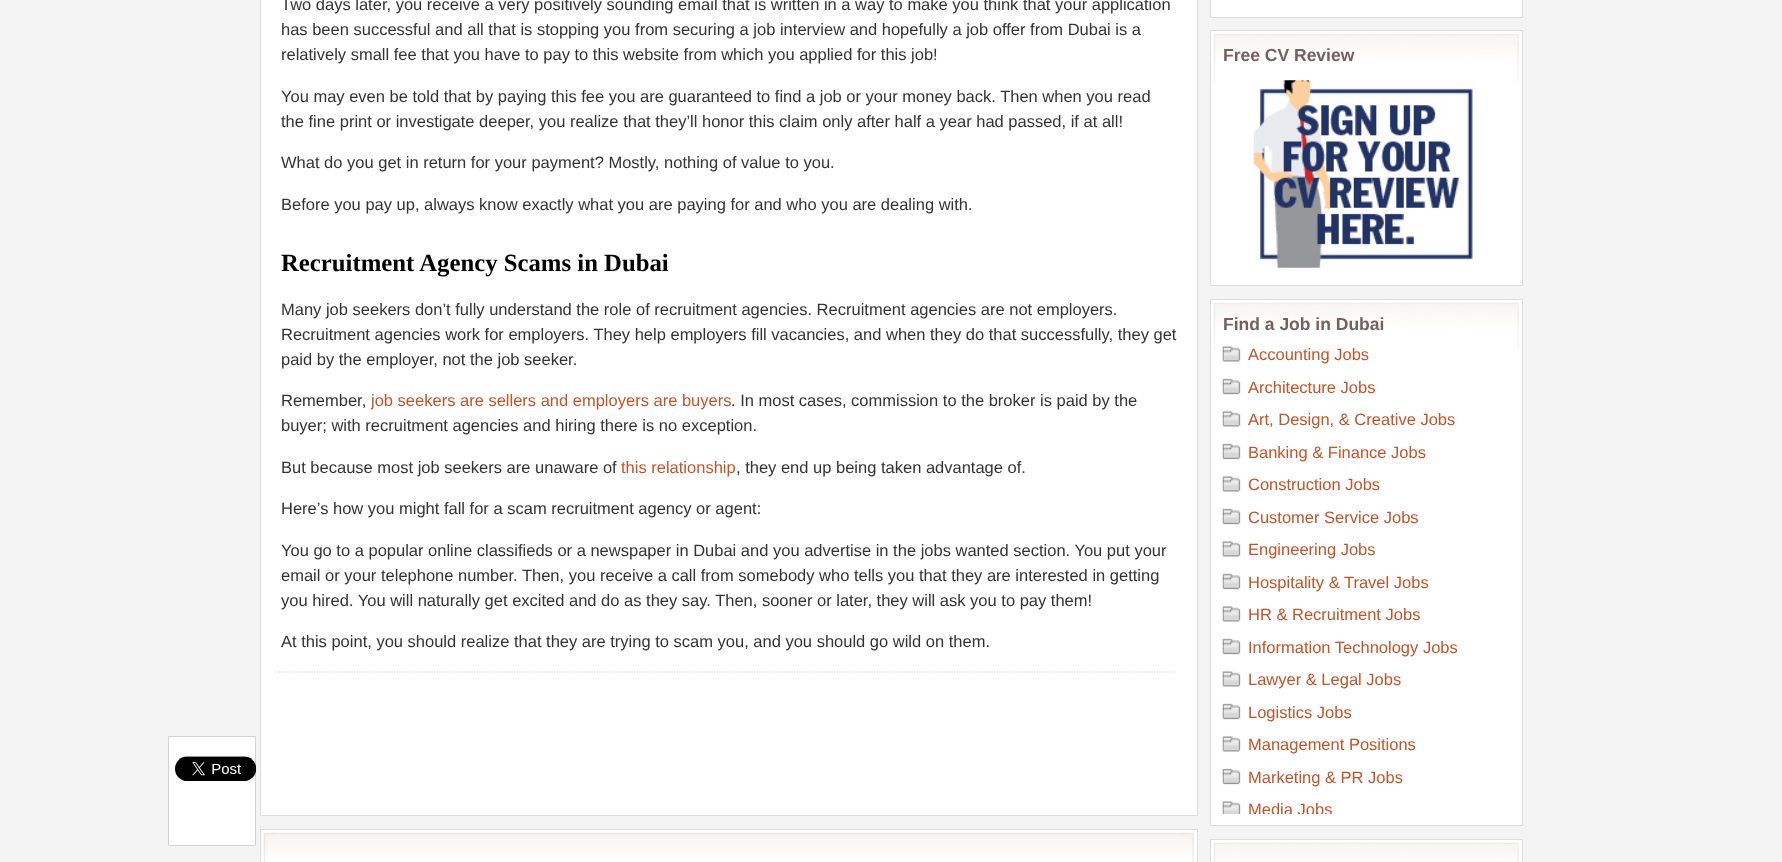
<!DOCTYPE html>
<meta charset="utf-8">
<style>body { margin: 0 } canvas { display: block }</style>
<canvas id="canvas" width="1782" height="862"></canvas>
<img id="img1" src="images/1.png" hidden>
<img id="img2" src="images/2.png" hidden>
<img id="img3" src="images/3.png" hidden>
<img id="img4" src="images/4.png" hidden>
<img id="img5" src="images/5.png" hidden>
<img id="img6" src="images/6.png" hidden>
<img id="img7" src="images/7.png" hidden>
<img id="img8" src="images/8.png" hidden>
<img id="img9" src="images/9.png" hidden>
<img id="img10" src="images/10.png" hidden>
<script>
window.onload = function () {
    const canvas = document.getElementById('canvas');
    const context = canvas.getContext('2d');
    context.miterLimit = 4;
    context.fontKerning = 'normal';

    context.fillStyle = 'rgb(244, 244, 244)';
    context.fillRect(0, 0, 1782, 862);
    context.fillStyle = 'rgb(255, 255, 255)';
    context.beginPath();
    context.rect(260.5, -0.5, 937, 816);
    context.fill();
    context.strokeStyle = 'rgb(221, 221, 221)';
    context.stroke();
    context.beginPath();
    context.moveTo(274, 672);
    context.lineTo(1176, 672);
    context.strokeStyle = 'rgb(211, 211, 211)';
    context.lineWidth = 1.2;
    context.setLineDash([1.25, 1.25]);
    context.stroke();
    context.beginPath();
    context.rect(168.5, 736.5, 87, 109);
    context.fill();
    context.lineWidth = 1;
    context.setLineDash([]);
    context.stroke();
    context.drawImage(document.getElementById('img1'), 175, 756, 82, 25);
    context.fillRect(261, 830, 936, 32);
    context.drawImage(document.getElementById('img2'), 263, 832, 931, 30);
    context.strokeStyle = 'rgb(221, 221, 221)';
    context.strokeRect(260.5, 829.5, 937, 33);
    context.beginPath();
    context.rect(1210.5, -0.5, 312, 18);
    context.fill();
    context.stroke();
    context.fillRect(1211, 31, 311, 254);
    context.drawImage(document.getElementById('img3'), 1213, 34, 306, 48);
    context.strokeRect(1210.5, 30.5, 312, 255);
    context.drawImage(document.getElementById('img4'), 1253, 80, 221, 188);
    context.fillRect(1211, 300, 311, 525);
    context.drawImage(document.getElementById('img5'), 1213, 302, 306, 48);
    context.strokeRect(1210.5, 299.5, 312, 526);
    context.drawImage(document.getElementById('img6'), 1222, 345, 19, 17);
    context.drawImage(document.getElementById('img7'), 1222, 378, 19, 17);
    context.drawImage(document.getElementById('img8'), 1222, 410, 19, 17);
    context.drawImage(document.getElementById('img7'), 1222, 443, 19, 17);
    context.drawImage(document.getElementById('img8'), 1222, 475, 19, 17);
    context.drawImage(document.getElementById('img7'), 1222, 508, 19, 17);
    context.drawImage(document.getElementById('img8'), 1222, 540, 19, 17);
    context.drawImage(document.getElementById('img7'), 1222, 573, 19, 17);
    context.drawImage(document.getElementById('img8'), 1222, 605, 19, 17);
    context.drawImage(document.getElementById('img7'), 1222, 638, 19, 17);
    context.drawImage(document.getElementById('img8'), 1222, 670, 19, 17);
    context.drawImage(document.getElementById('img7'), 1222, 703, 19, 17);
    context.drawImage(document.getElementById('img8'), 1222, 735, 19, 17);
    context.drawImage(document.getElementById('img7'), 1222, 768, 19, 17);
    context.drawImage(document.getElementById('img9'), 1222, 800, 19, 14);
    context.fillRect(1211, 840, 311, 22);
    context.drawImage(document.getElementById('img10'), 1213, 842, 306, 20);
    context.strokeRect(1210.5, 839.5, 312, 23);
    context.font = '16.5px Liberation Sans';
    context.fillStyle = 'rgb(51, 51, 51)';
    context.fillText('Two days later, you receive a very positively sounding email that is written in a way to make you think that your application', 281, 10);
    context.fillText('has been successful and all that is stopping you from securing a job interview and hopefully a job offer from Dubai is a', 281, 35);
    context.fillText('relatively small fee that you have to pay to this website from which you applied for this job!', 281, 60);
    context.fillText('You may even be told that by paying this fee you are guaranteed to find a job or your money back. Then when you read', 281, 102);
    context.fillText('the fine print or investigate deeper, you realize that they’ll honor this claim only after half a year had passed, if at all!', 281, 127);
    context.fillText('What do you get in return for your payment? Mostly, nothing of value to you.', 281, 168);
    context.fillText('Before you pay up, always know exactly what you are paying for and who you are dealing with.', 281, 210);
    context.font = 'bold 24.75px Liberation Serif';
    context.fillStyle = 'rgb(0, 0, 0)';
    context.fillText('Recruitment Agency Scams in Dubai', 281, 271);
    context.font = '16.5px Liberation Sans';
    context.fillStyle = 'rgb(51, 51, 51)';
    context.fillText('Many job seekers don’t fully understand the role of recruitment agencies. Recruitment agencies are not employers.', 281, 315);
    context.fillText('Recruitment agencies work for employers. They help employers fill vacancies, and when they do that successfully, they get', 281, 340);
    context.fillText('paid by the employer, not the job seeker.', 281, 365);
    context.fillText('Remember,', 281, 406);
    context.fillStyle = 'rgb(195, 84, 41)';
    context.fillText('job seekers are sellers and employers are buyers', 371, 406);
    context.fillStyle = 'rgb(51, 51, 51)';
    context.fillText('. In most cases, commission to the broker is paid by the', 731, 406);
    context.fillText('buyer; with recruitment agencies and hiring there is no exception.', 281, 431);
    context.fillText('But because most job seekers are unaware of', 281, 473);
    context.fillStyle = 'rgb(195, 84, 41)';
    context.fillText('this relationship', 621, 473);
    context.fillStyle = 'rgb(51, 51, 51)';
    context.fillText(', they end up being taken advantage of.', 736, 473);
    context.fillText('Here’s how you might fall for a scam recruitment agency or agent:', 281, 514);
    context.fillText('You go to a popular online classifieds or a newspaper in Dubai and you advertise in the jobs wanted section. You put your', 281, 556);
    context.fillText('email or your telephone number. Then, you receive a call from somebody who tells you that they are interested in getting', 281, 581);
    context.fillText('you hired. You will naturally get excited and do as they say. Then, sooner or later, they will ask you to pay them!', 281, 606);
    context.fillText('At this point, you should realize that they are trying to scam you, and you should go wild on them.', 281, 647);
    context.font = 'bold 17.5px Liberation Sans';
    context.fillStyle = 'rgb(117, 95, 97)';
    context.fillText('Free CV Review', 1223, 61);
    context.fillText('Find a Job in Dubai', 1223, 330);
    context.font = '16.5px Liberation Sans';
    context.fillStyle = 'rgb(195, 84, 41)';
    context.fillText('Accounting Jobs', 1248, 360);
    context.fillText('Architecture Jobs', 1248, 393);
    context.fillText('Art, Design, & Creative Jobs', 1248, 425);
    context.fillText('Banking & Finance Jobs', 1248, 458);
    context.fillText('Construction Jobs', 1248, 490);
    context.fillText('Customer Service Jobs', 1248, 523);
    context.fillText('Engineering Jobs', 1248, 555);
    context.fillText('Hospitality & Travel Jobs', 1248, 588);
    context.fillText('HR & Recruitment Jobs', 1248, 620);
    context.fillText('Information Technology Jobs', 1248, 653);
    context.fillText('Lawyer & Legal Jobs', 1248, 685);
    context.fillText('Logistics Jobs', 1248, 718);
    context.fillText('Management Positions', 1248, 750);
    context.fillText('Marketing & PR Jobs', 1248, 783);
    context.save();
    context.beginPath();
    context.rect(1223, 343, 287, 471);
    context.clip();
    context.fillText('Media Jobs', 1248, 815);
    context.restore();
};
</script>
